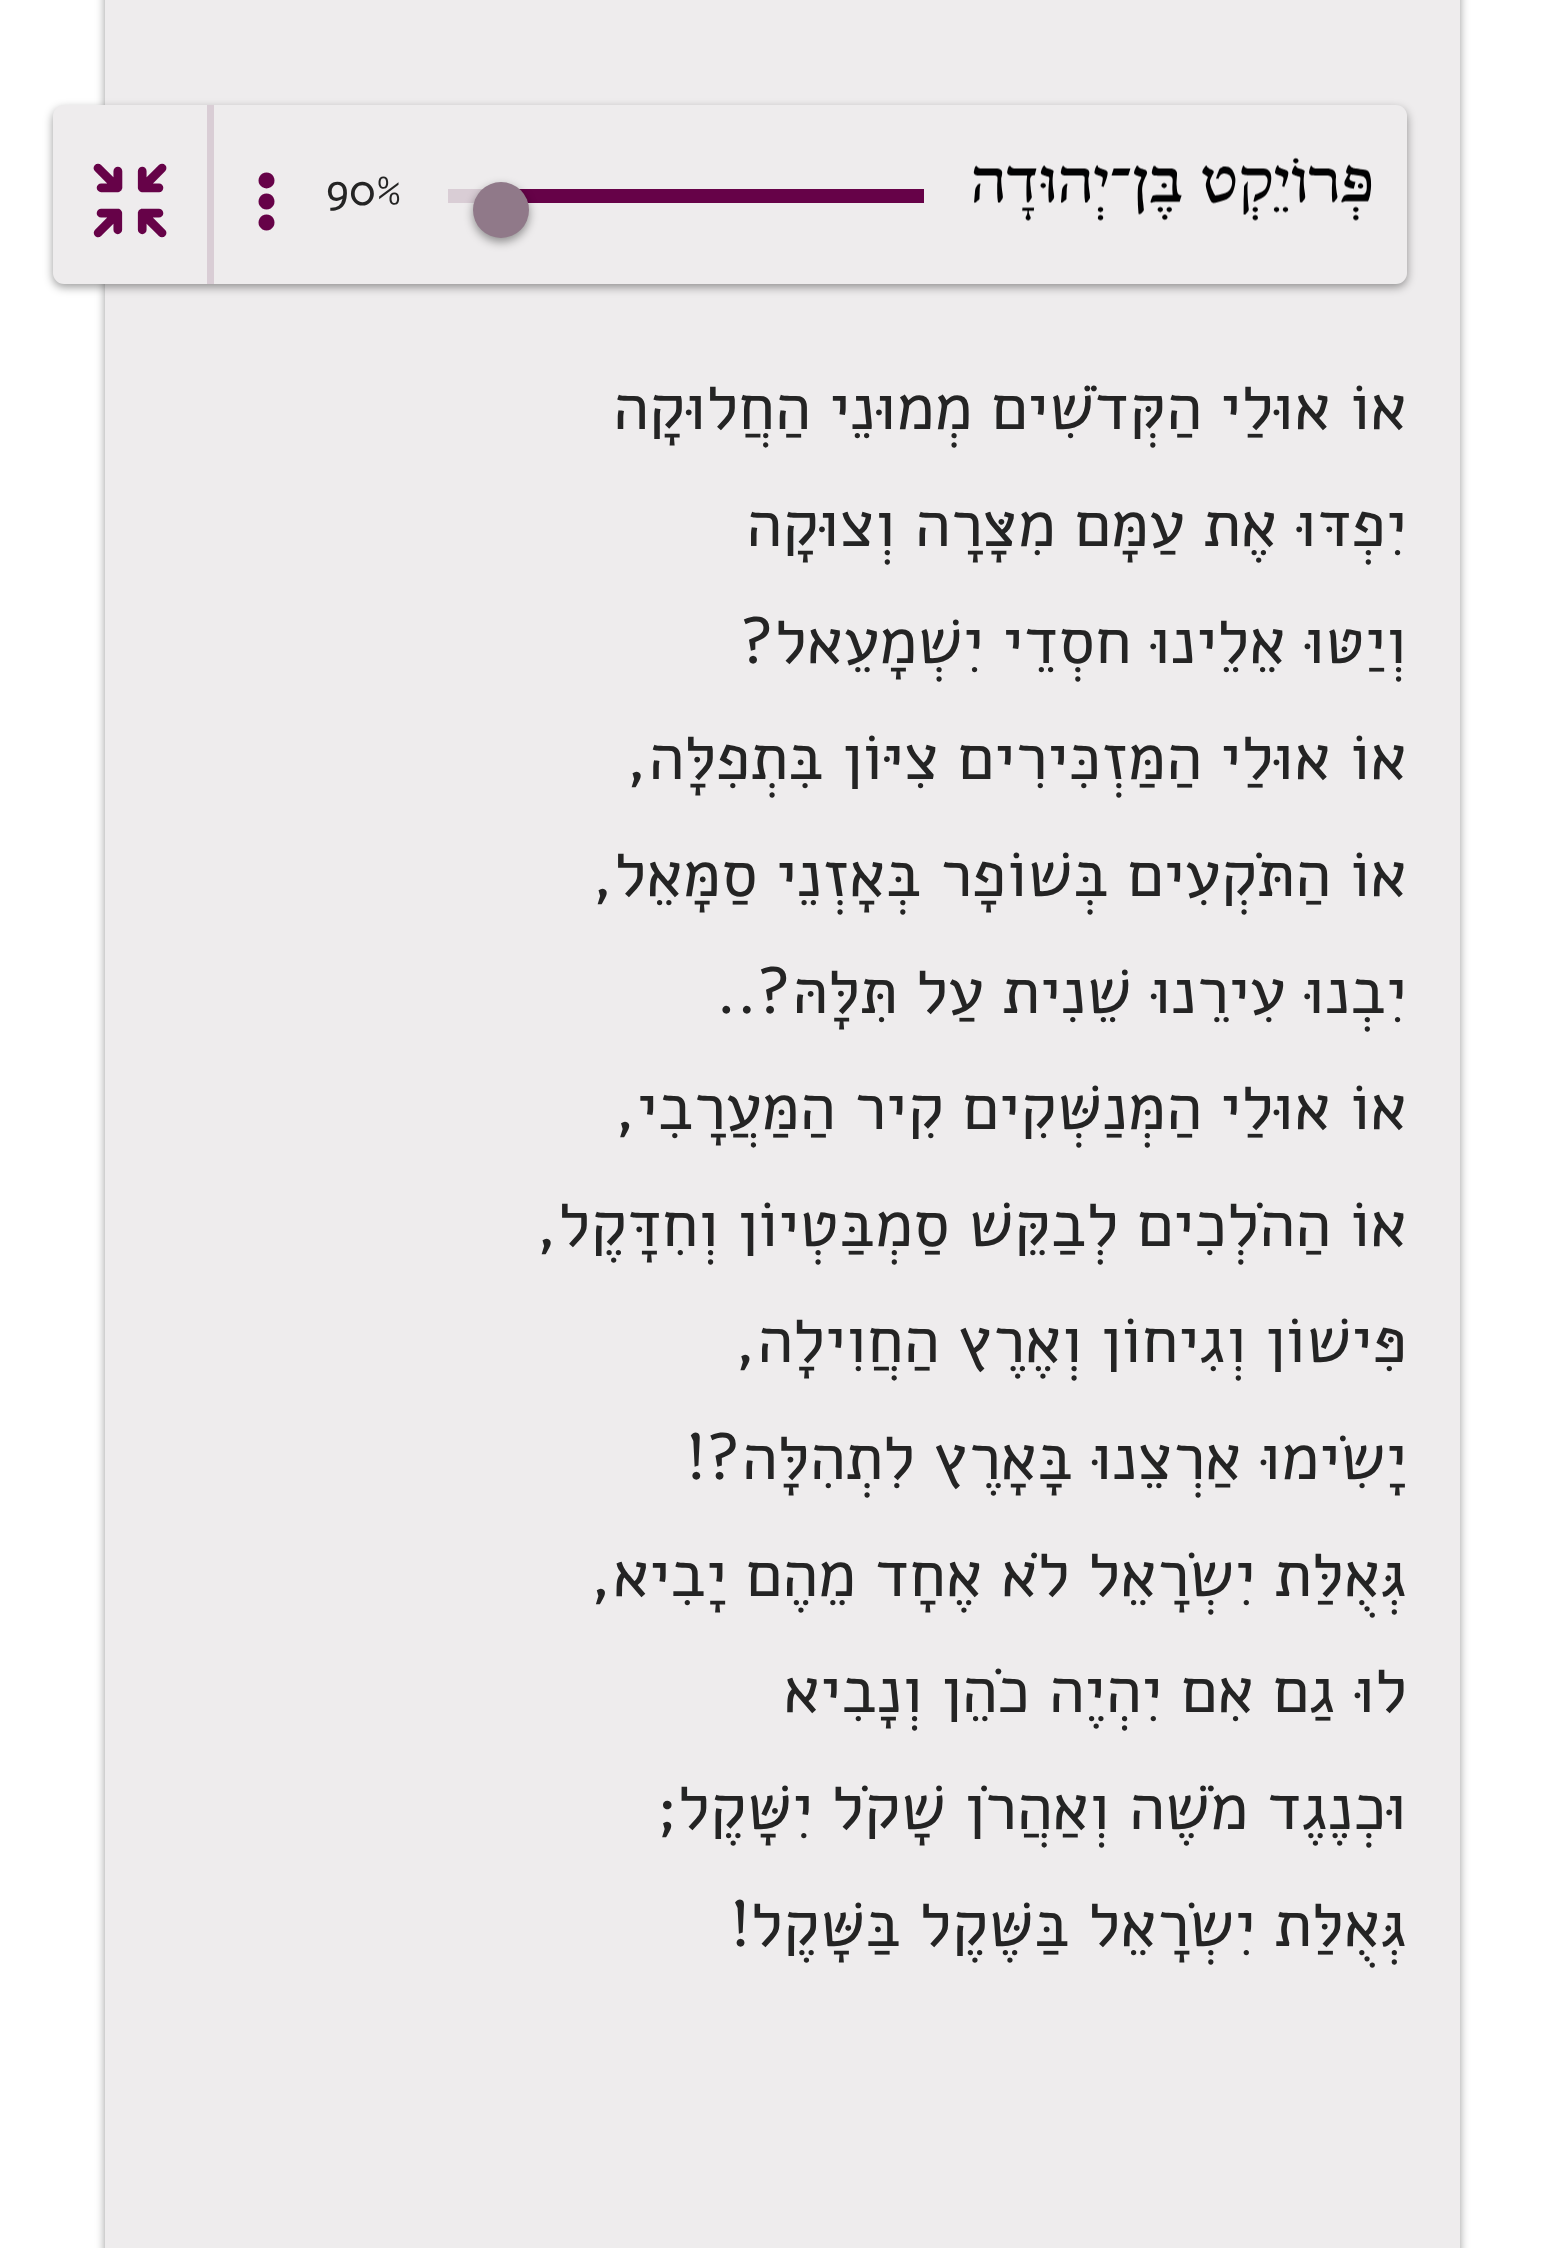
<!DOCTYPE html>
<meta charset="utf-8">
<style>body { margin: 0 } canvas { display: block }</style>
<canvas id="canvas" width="1564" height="2248"></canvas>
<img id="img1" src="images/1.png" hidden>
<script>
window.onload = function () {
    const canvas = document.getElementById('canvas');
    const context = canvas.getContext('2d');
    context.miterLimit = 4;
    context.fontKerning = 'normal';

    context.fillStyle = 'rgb(255, 255, 255)';
    context.fillRect(0, 0, 1564, 2248);
    context.fillStyle = 'rgba(0, 0, 0, 0.4)';
    context.filter = 'blur(5px)';
    context.beginPath();
    context.roundRect(105, -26, 1355, 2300, 11);
    context.fill();
    context.filter = 'none';
    context.fillStyle = 'rgb(238, 236, 237)';
    context.fillRect(105, 0, 1355, 2248);
    context.fillStyle = 'rgba(0, 0, 0, 0.4)';
    context.filter = 'blur(5px)';
    context.beginPath();
    context.roundRect(53, 109, 1354, 178, 11);
    context.fill();
    context.filter = 'none';
    context.fillStyle = 'rgb(238, 236, 237)';
    context.beginPath();
    context.roundRect(53, 105, 1354, 179, 11);
    context.fill();
    context.drawImage(document.getElementById('img1'), 973, 157, 399, 64);
    context.fillStyle = 'rgb(217, 205, 213)';
    context.fillRect(448, 189, 35, 14);
    context.fillStyle = 'rgb(102, 2, 72)';
    context.fillRect(519, 189, 405, 14);
    context.fillStyle = 'rgba(0, 0, 0, 0.4)';
    context.filter = 'blur(5px)';
    context.beginPath();
    context.roundRect(473, 186, 56, 56, 28);
    context.fill();
    context.filter = 'none';
    context.fillStyle = 'rgb(144, 121, 137)';
    context.beginPath();
    context.arc(501, 210, 28, 0, 2 * Math.PI);
    context.fill();
    context.fillStyle = 'rgb(217, 205, 213)';
    context.fillRect(207, 105, 7, 179);
    context.font = '44px Alef';
    context.fillStyle = 'rgb(36, 36, 36)';
    context.fillText('90%', 326, 205);
    context.font = '63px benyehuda';
    context.fillStyle = 'rgb(102, 2, 72)';
    context.fillText('Y', 235, 233);
    context.font = '84px benyehuda';
    context.fillText('.', 88, 242);
    context.direction = 'rtl';
    context.font = '65.3px Alef';
    context.fillStyle = 'rgb(36, 36, 36)';
    context.fillText('אוֹ אוּלַי הַקְּדֹשִׁים מְמוּנֵי הַחֲלוּקָה', 1407, 429);
    context.fillText('יִפְדּוּ אֶת עַמָּם מִצָּרָה וְצוּקָה', 1407, 546);
    context.fillText('וְיַטּוּ אֵלֵינוּ חסְדֵי יִשְׁמָעֵאל?', 1407, 663);
    context.fillText('אוֹ אוּלַי הַמַּזְכִּירִים צִיּוֹן בִּתְפִלָּה,', 1407, 779);
    context.fillText('אוֹ הַתֹּקְעִים בְּשׁוֹפָר בְּאָזְנֵי סַמָּאֵל,', 1407, 896);
    context.fillText('יִבְנוּ עִירֵנוּ שֵׁנִית עַל תִּלָּהּ?..', 1407, 1013);
    context.fillText('אוֹ אוּלַי הַמְּנַשְּׁקִים קִיר הַמַּעֲרָבִי,', 1407, 1129);
    context.fillText('אוֹ הַהֹלְכִים לְבַקֵּשׁ סַמְבַּטְיוֹן וְחִדָּקֶל,', 1407, 1246);
    context.fillText('פִּישׁוֹן וְגִיחוֹן וְאֶרֶץ הַחֲוִילָה,', 1407, 1362);
    context.fillText('יָשִׂימוּ אַרְצֵנוּ בָּאָרֶץ לִתְהִלָּה?!', 1407, 1479);
    context.fillText('גְּאֻלַּת יִשְׂרָאֵל לֹא אֶחָד מֵהֶם יָבִיא,', 1407, 1596);
    context.fillText('לוּ גַם אִם יִהְיֶה כֹהֵן וְנָבִיא', 1407, 1712);
    context.fillText('וּכְנֶגֶד מֹשֶׁה וְאַהֲרֹן שָׁקֹל יִשָּׁקֶל;', 1407, 1829);
    context.fillText('גְּאֻלַּת יִשְׂרָאֵל בַּשֶּׁקֶל בַּשָּׁקֶל!', 1407, 1946);
};
</script>
